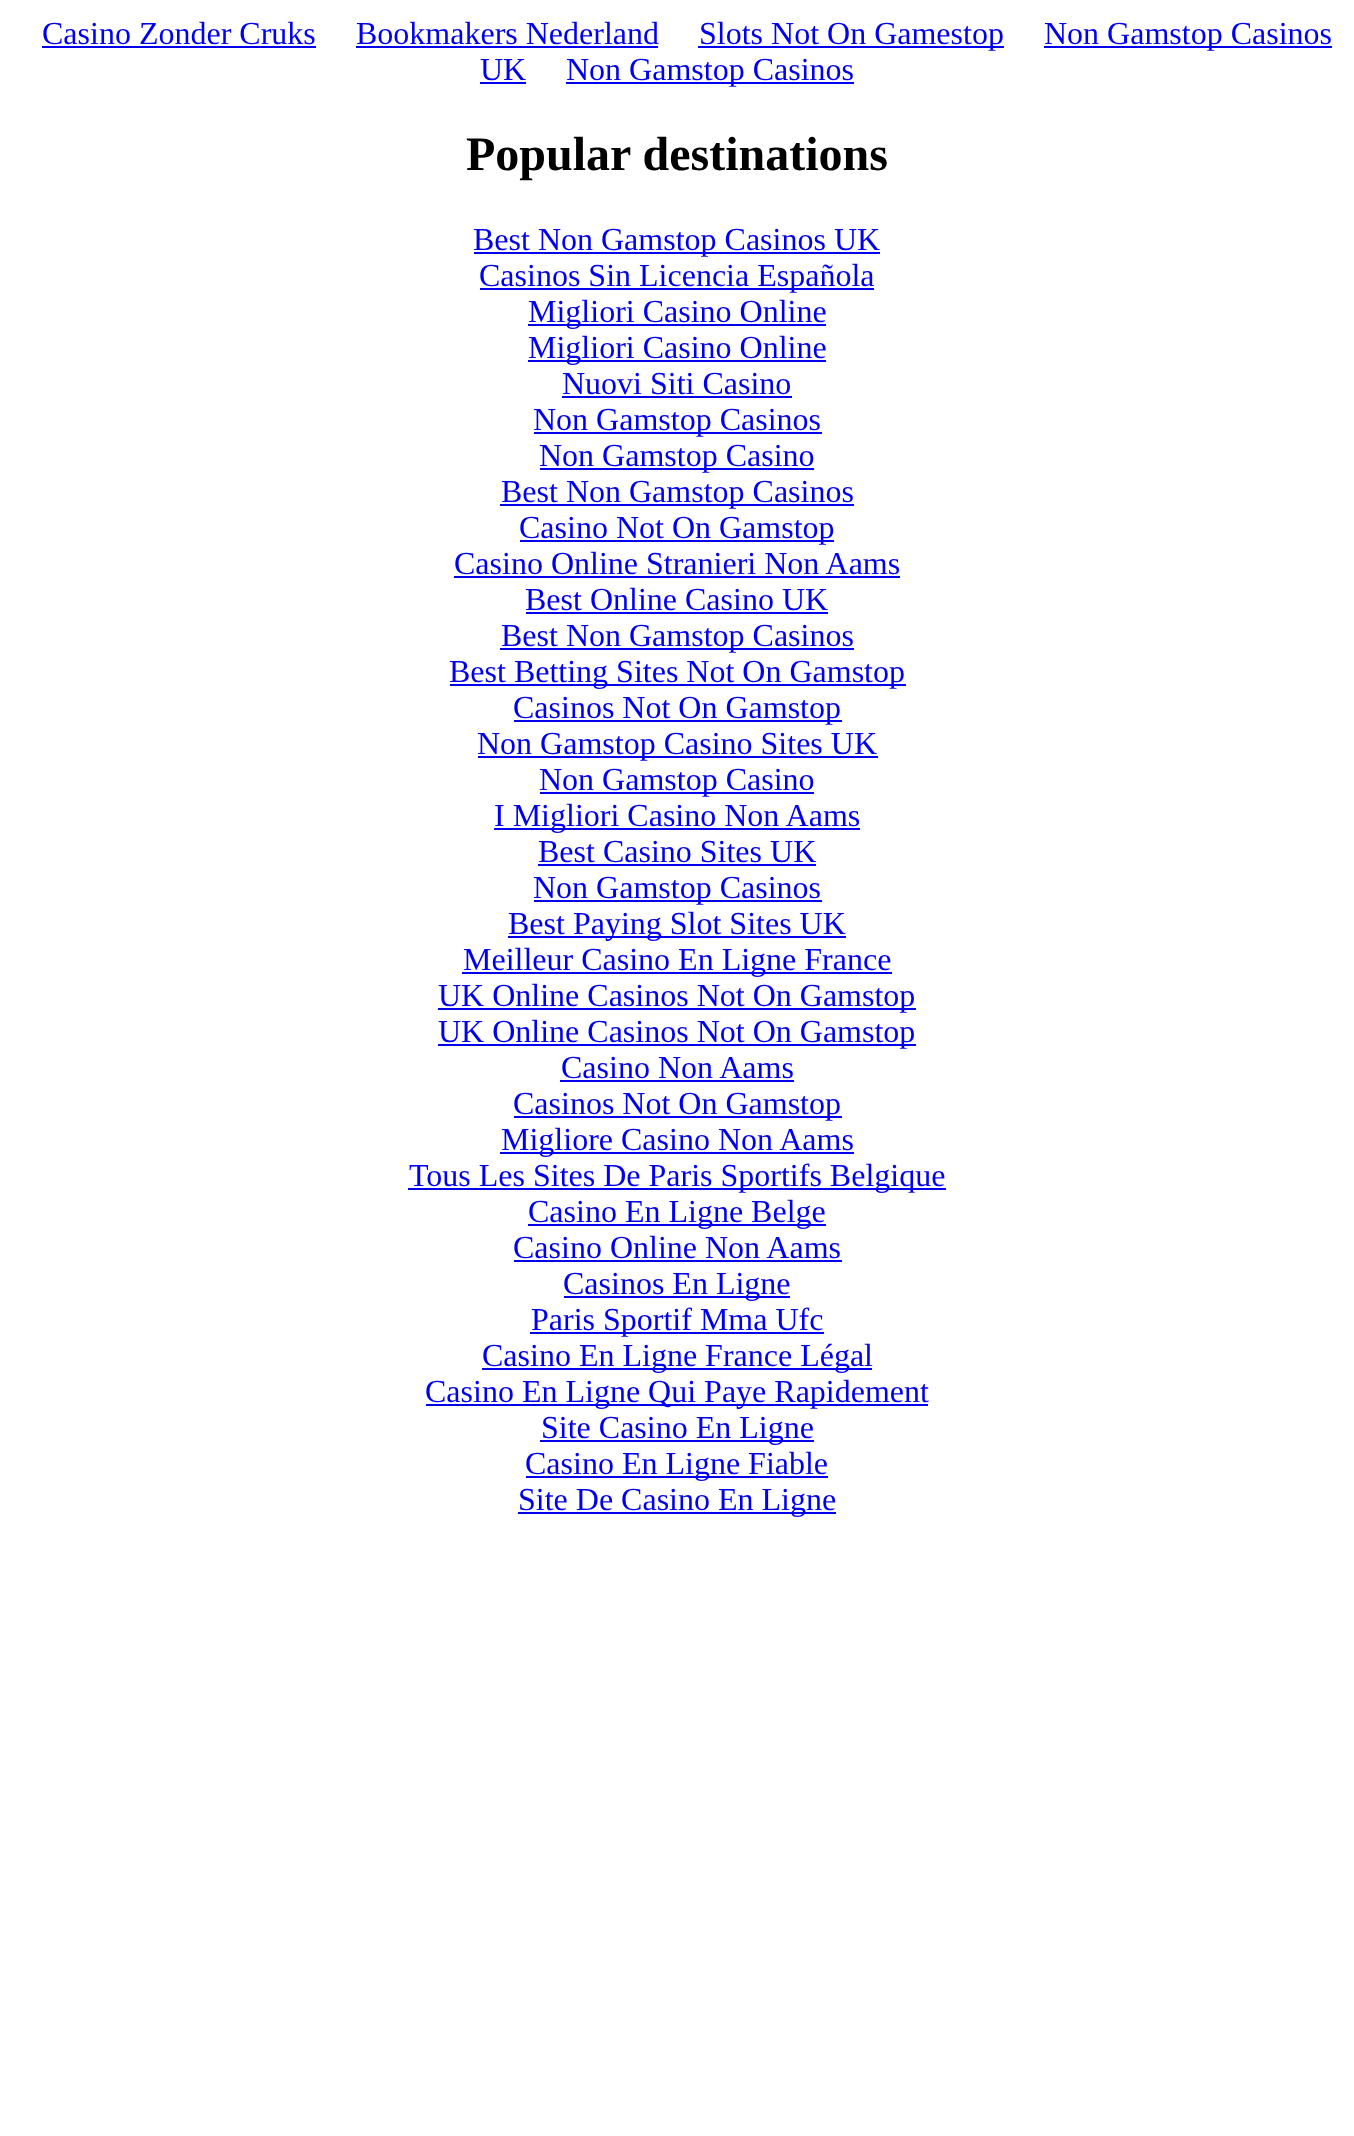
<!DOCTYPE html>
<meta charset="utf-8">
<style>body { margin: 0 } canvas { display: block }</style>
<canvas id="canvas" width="1354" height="2136"></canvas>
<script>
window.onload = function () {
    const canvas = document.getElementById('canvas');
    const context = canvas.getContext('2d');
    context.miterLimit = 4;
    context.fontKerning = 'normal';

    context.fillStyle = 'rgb(255, 255, 255)';
    context.fillRect(0, 0, 1354, 2136);
    context.fillStyle = 'rgb(0, 0, 238)';
    context.fillRect(42, 46, 274, 2);
    context.fillRect(356, 46, 302, 2);
    context.fillRect(698, 46, 306, 2);
    context.fillRect(1044, 46, 288, 2);
    context.fillRect(480, 82, 46, 2);
    context.fillRect(566, 82, 288, 2);
    context.fillRect(474, 252, 406, 2);
    context.fillRect(480, 288, 394, 2);
    context.fillRect(528, 324, 298, 2);
    context.fillRect(528, 360, 298, 2);
    context.fillRect(562, 396, 230, 2);
    context.fillRect(534, 432, 288, 2);
    context.fillRect(540, 468, 274, 2);
    context.fillRect(500, 504, 354, 2);
    context.fillRect(520, 540, 314, 2);
    context.fillRect(454, 576, 446, 2);
    context.fillRect(526, 612, 302, 2);
    context.fillRect(500, 648, 354, 2);
    context.fillRect(450, 684, 456, 2);
    context.fillRect(514, 720, 328, 2);
    context.fillRect(478, 756, 400, 2);
    context.fillRect(540, 792, 274, 2);
    context.fillRect(494, 828, 366, 2);
    context.fillRect(538, 864, 278, 2);
    context.fillRect(534, 900, 288, 2);
    context.fillRect(508, 936, 338, 2);
    context.fillRect(462, 972, 430, 2);
    context.fillRect(438, 1008, 478, 2);
    context.fillRect(438, 1044, 478, 2);
    context.fillRect(560, 1080, 234, 2);
    context.fillRect(514, 1116, 328, 2);
    context.fillRect(500, 1152, 354, 2);
    context.fillRect(408, 1188, 538, 2);
    context.fillRect(528, 1224, 298, 2);
    context.fillRect(514, 1260, 328, 2);
    context.fillRect(564, 1296, 226, 2);
    context.fillRect(530, 1332, 294, 2);
    context.fillRect(482, 1368, 390, 2);
    context.fillRect(426, 1404, 502, 2);
    context.fillRect(540, 1440, 274, 2);
    context.fillRect(526, 1476, 302, 2);
    context.fillRect(518, 1512, 318, 2);
    context.font = '32px Liberation Serif';
    context.fillText('Casino Zonder Cruks', 42, 44);
    context.fillText('Bookmakers Nederland', 356, 44);
    context.fillText('Slots Not On Gamestop', 699, 44);
    context.fillText('Non Gamstop Casinos', 1044, 44);
    context.fillText('UK', 480, 80);
    context.fillText('Non Gamstop Casinos', 566, 80);
    context.font = 'bold 48px Liberation Serif';
    context.fillStyle = 'rgb(0, 0, 0)';
    context.fillText('Popular destinations', 466, 170);
    context.font = '32px Liberation Serif';
    context.fillStyle = 'rgb(0, 0, 238)';
    context.fillText('Best Non Gamstop Casinos UK', 473, 250);
    context.fillText('Casinos Sin Licencia Española', 479, 286);
    context.fillText('Migliori Casino Online', 528, 322);
    context.fillText('Migliori Casino Online', 528, 358);
    context.fillText('Nuovi Siti Casino', 562, 394);
    context.fillText('Non Gamstop Casinos', 533, 430);
    context.fillText('Non Gamstop Casino', 539, 466);
    context.fillText('Best Non Gamstop Casinos', 501, 502);
    context.fillText('Casino Not On Gamstop', 519, 538);
    context.fillText('Casino Online Stranieri Non Aams', 454, 574);
    context.fillText('Best Online Casino UK', 525, 610);
    context.fillText('Best Non Gamstop Casinos', 501, 646);
    context.fillText('Best Betting Sites Not On Gamstop', 449, 682);
    context.fillText('Casinos Not On Gamstop', 513, 718);
    context.fillText('Non Gamstop Casino Sites UK', 477, 754);
    context.fillText('Non Gamstop Casino', 539, 790);
    context.fillText('I Migliori Casino Non Aams', 494, 826);
    context.fillText('Best Casino Sites UK', 538, 862);
    context.fillText('Non Gamstop Casinos', 533, 898);
    context.fillText('Best Paying Slot Sites UK', 508, 934);
    context.fillText('Meilleur Casino En Ligne France', 463, 970);
    context.fillText('UK Online Casinos Not On Gamstop', 438, 1006);
    context.fillText('UK Online Casinos Not On Gamstop', 438, 1042);
    context.fillText('Casino Non Aams', 561, 1078);
    context.fillText('Casinos Not On Gamstop', 513, 1114);
    context.fillText('Migliore Casino Non Aams', 501, 1150);
    context.fillText('Tous Les Sites De Paris Sportifs Belgique', 409, 1186);
    context.fillText('Casino En Ligne Belge', 528, 1222);
    context.fillText('Casino Online Non Aams', 513, 1258);
    context.fillText('Casinos En Ligne', 563, 1294);
    context.fillText('Paris Sportif Mma Ufc', 531, 1330);
    context.fillText('Casino En Ligne France Légal', 482, 1366);
    context.fillText('Casino En Ligne Qui Paye Rapidement', 425, 1402);
    context.fillText('Site Casino En Ligne', 541, 1438);
    context.fillText('Casino En Ligne Fiable', 525, 1474);
    context.fillText('Site De Casino En Ligne', 518, 1510);
};
</script>
